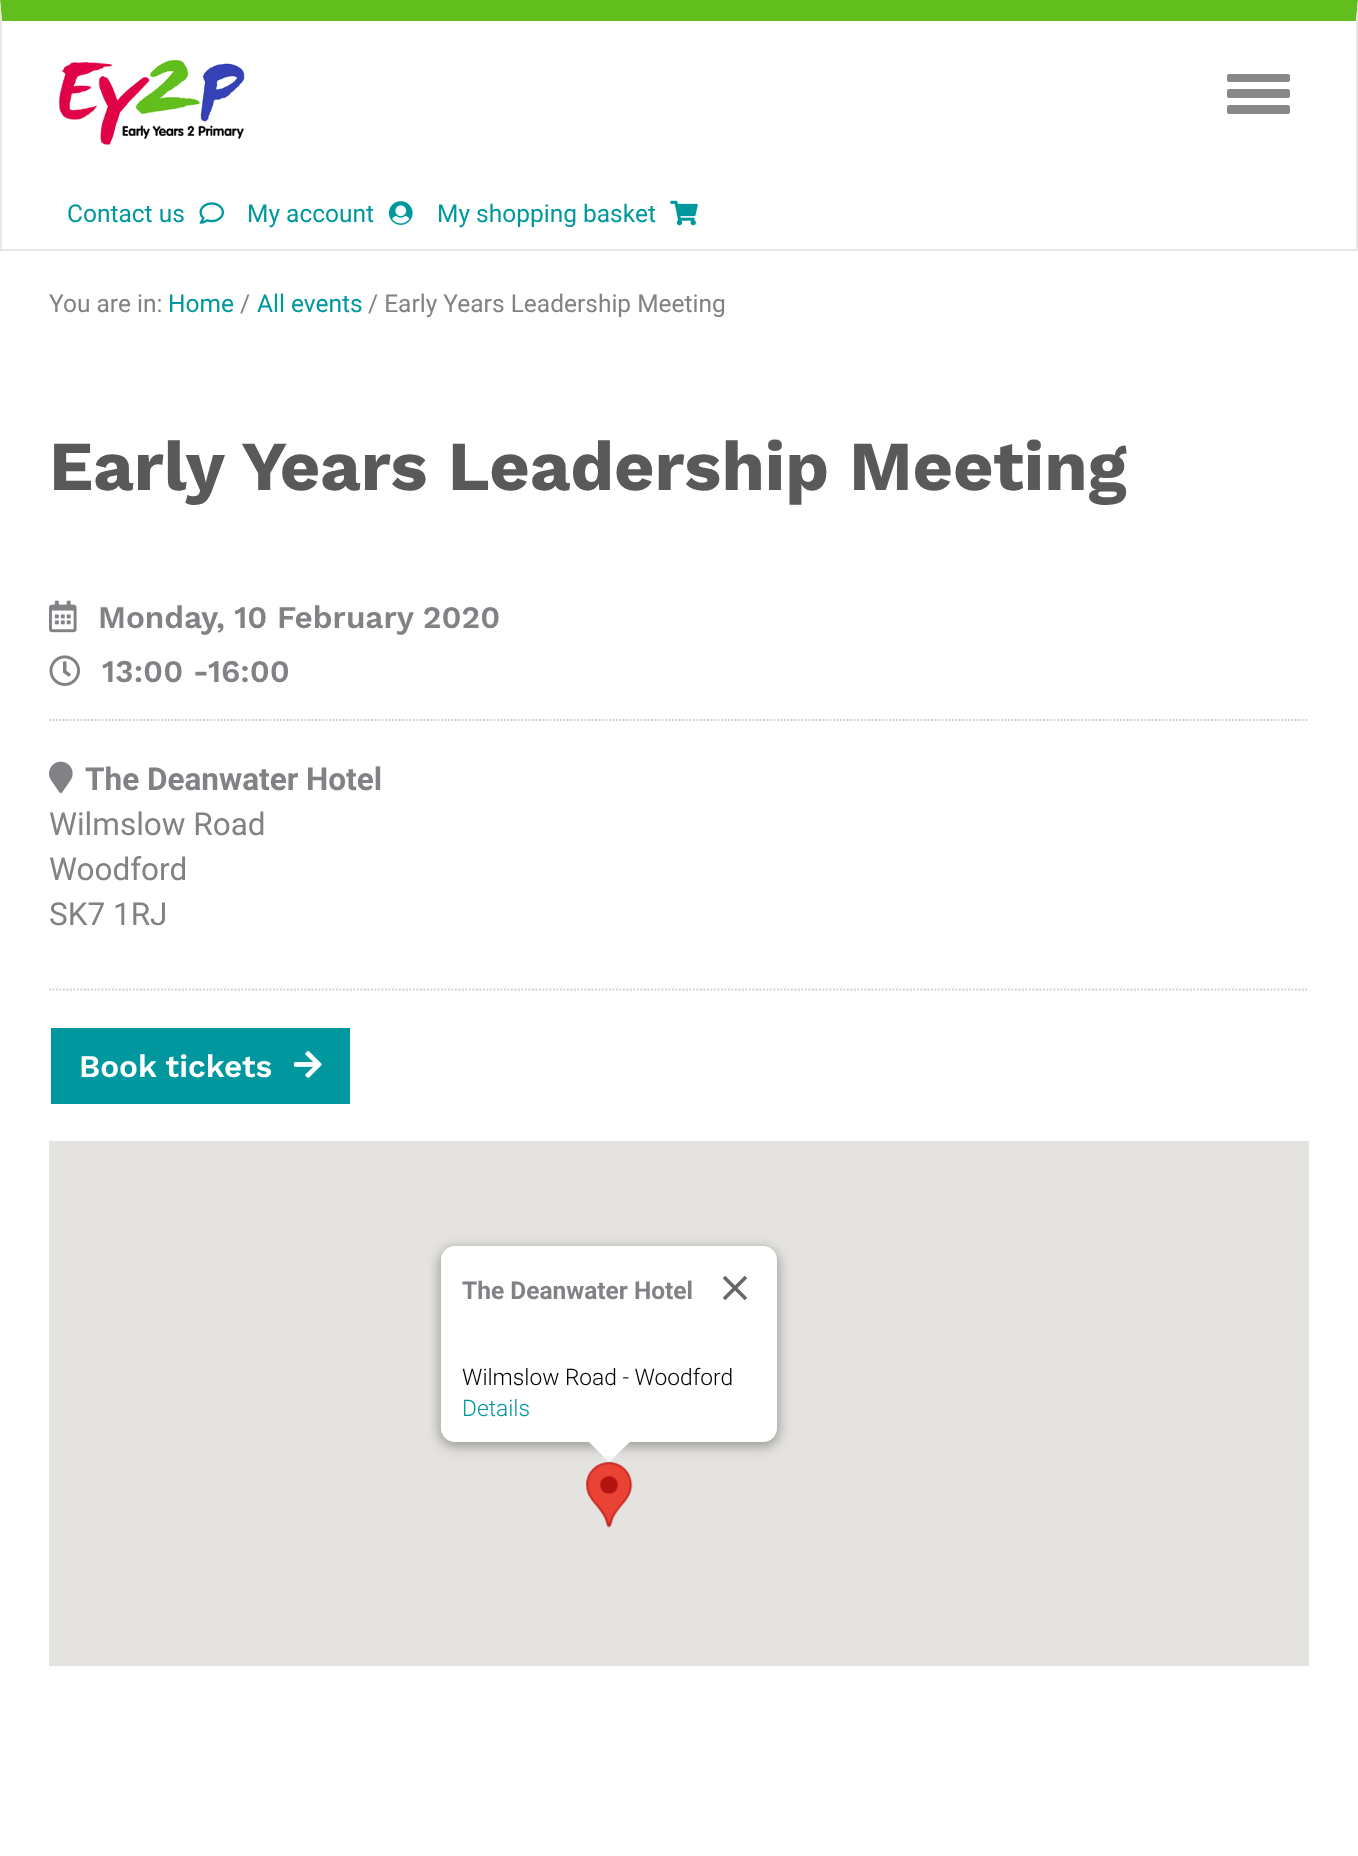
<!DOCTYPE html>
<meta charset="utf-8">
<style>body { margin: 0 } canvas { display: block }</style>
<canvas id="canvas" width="1358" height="1856"></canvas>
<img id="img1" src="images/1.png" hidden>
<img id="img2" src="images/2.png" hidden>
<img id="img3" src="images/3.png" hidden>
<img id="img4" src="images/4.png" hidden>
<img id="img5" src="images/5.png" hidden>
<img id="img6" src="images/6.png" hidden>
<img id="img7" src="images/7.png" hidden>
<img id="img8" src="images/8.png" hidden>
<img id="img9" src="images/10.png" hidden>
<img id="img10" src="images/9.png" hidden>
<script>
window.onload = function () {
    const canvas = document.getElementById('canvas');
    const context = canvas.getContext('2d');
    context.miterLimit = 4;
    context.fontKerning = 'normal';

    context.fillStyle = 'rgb(255, 255, 255)';
    context.fillRect(0, 0, 1358, 1856);
    context.fillStyle = 'rgb(97, 190, 28)';
    context.beginPath();
    context.moveTo(0, 0);
    context.lineTo(1358, 0);
    context.lineTo(1356, 21);
    context.lineTo(2, 21);
    context.closePath();
    context.fill();
    context.fillStyle = 'rgb(231, 231, 231)';
    context.beginPath();
    context.moveTo(1358, 0);
    context.lineTo(1358, 250);
    context.lineTo(1356, 248);
    context.lineTo(1356, 21);
    context.closePath();
    context.fill();
    context.fillRect(0, 249, 1358, 2);
    context.beginPath();
    context.moveTo(0, 250);
    context.lineTo(0, 0);
    context.lineTo(2, 21);
    context.lineTo(2, 248);
    context.closePath();
    context.fill();
    context.drawImage(document.getElementById('img1'), 58, 60, 187, 85);
    context.fillStyle = 'rgb(136, 136, 136)';
    context.beginPath();
    context.roundRect(1227, 74, 63, 8, 2);
    context.fill();
    context.beginPath();
    context.roundRect(1227, 89, 63, 9, 2);
    context.fill();
    context.beginPath();
    context.roundRect(1227, 105, 63, 9, 2);
    context.fill();
    context.drawImage(document.getElementById('img2'), 199, 202, 25, 22);
    context.drawImage(document.getElementById('img3'), 388, 201, 25, 24);
    context.drawImage(document.getElementById('img4'), 670, 200, 28, 26);
    context.beginPath();
    context.moveTo(49, 720);
    context.lineTo(1309, 720);
    context.strokeStyle = 'rgb(204, 204, 204)';
    context.lineWidth = 1.8;
    context.setLineDash([1.75, 1.75]);
    context.stroke();
    context.drawImage(document.getElementById('img5'), 49, 600, 28, 33);
    context.drawImage(document.getElementById('img6'), 49, 655, 31, 31);
    context.beginPath();
    context.moveTo(49, 989.5);
    context.lineTo(1309, 989.5);
    context.stroke();
    context.drawImage(document.getElementById('img7'), 49, 761, 24, 33);
    context.fillStyle = 'rgb(0, 152, 158)';
    context.fillRect(51, 1028, 299, 76);
    context.drawImage(document.getElementById('img8'), 294, 1051, 28, 27);
    context.fillStyle = 'rgb(229, 227, 223)';
    context.fillRect(49, 1141, 1260, 525);
    context.drawImage(document.getElementById('img9'), 586, 1462, 47, 66);
    context.fillStyle = 'rgba(0, 0, 0, 0.3)';
    context.filter = 'blur(6px)';
    context.beginPath();
    context.roundRect(439, 1248, 340, 199, 16);
    context.fill();
    context.filter = 'none';
    context.fillStyle = 'rgb(255, 255, 255)';
    context.beginPath();
    context.roundRect(441, 1246, 336, 196, 14);
    context.fill();
    context.drawImage(document.getElementById('img10'), 722, 1275, 26, 26);
    context.beginPath();
    context.moveTo(588, 1441);
    context.lineTo(631, 1441);
    context.lineTo(610, 1461);
    context.lineTo(608, 1461);
    context.closePath();
    context.fill();
    context.font = '24.5px Roboto';
    context.fillStyle = 'rgb(0, 152, 158)';
    context.fillText('Contact us', 67, 222);
    context.fillText('My account', 247, 222);
    context.fillText('My shopping basket', 437, 222);
    context.fillStyle = 'rgb(128, 130, 133)';
    context.fillText('You are in:', 49, 312);
    context.fillStyle = 'rgb(0, 152, 158)';
    context.fillText('Home', 168, 312);
    context.fillStyle = 'rgb(128, 130, 133)';
    context.fillText('/', 240, 312);
    context.fillStyle = 'rgb(0, 152, 158)';
    context.fillText('All events', 257, 312);
    context.fillStyle = 'rgb(128, 130, 133)';
    context.fillText('/ Early Years Leadership Meeting', 368, 312);
    context.font = 'bold 70px Work Sans';
    context.fillStyle = 'rgb(88, 89, 91)';
    context.fillText('Early Years Leadership Meeting', 49, 490);
    context.font = '600 31.5px Work Sans';
    context.fillStyle = 'rgb(128, 130, 133)';
    context.fillText('Monday, 10 February 2020', 98, 628);
    context.fillText('13:00 -16:00', 102, 682);
    context.font = 'bold 31.5px Roboto';
    context.fillText('The Deanwater Hotel', 85, 790);
    context.font = '31.5px Roboto';
    context.fillText('Wilmslow Road', 49, 835);
    context.fillText('Woodford', 49, 880);
    context.fillText('SK7 1RJ', 49, 925);
    context.font = '600 31.5px Work Sans';
    context.fillStyle = 'rgb(255, 255, 255)';
    context.fillText('Book tickets', 79, 1077);
    context.font = 'bold 24.5px Roboto';
    context.fillStyle = 'rgb(128, 130, 133)';
    context.fillText('The Deanwater Hotel', 462, 1299);
    context.font = '300 22.75px Roboto';
    context.fillStyle = 'rgb(0, 0, 0)';
    context.fillText('Wilmslow Road - Woodford', 462, 1385);
    context.fillStyle = 'rgb(0, 152, 158)';
    context.fillText('Details', 462, 1416);
};
</script>
